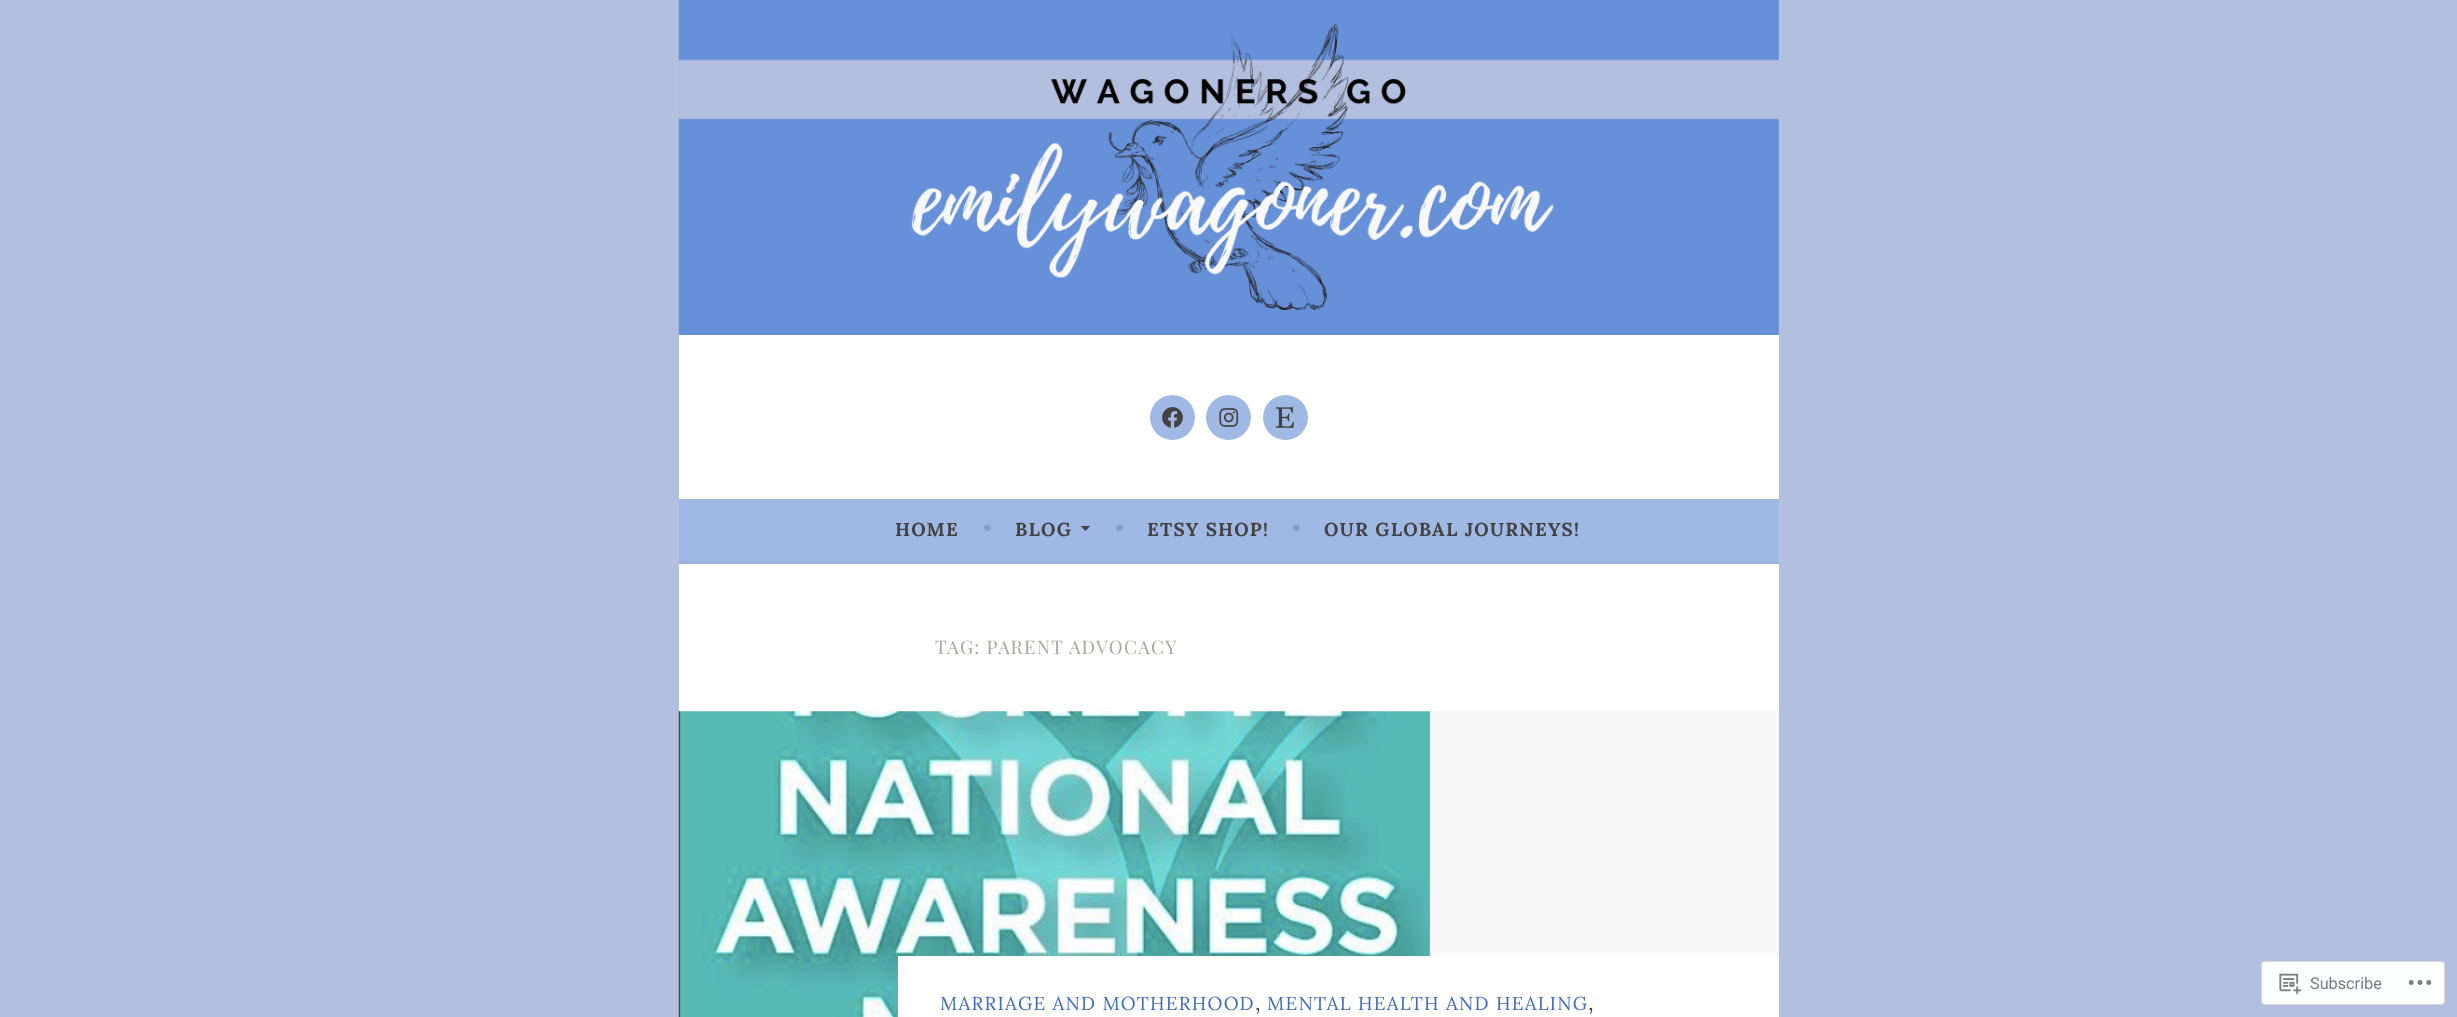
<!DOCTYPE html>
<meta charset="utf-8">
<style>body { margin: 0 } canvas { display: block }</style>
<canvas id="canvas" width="2457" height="1017"></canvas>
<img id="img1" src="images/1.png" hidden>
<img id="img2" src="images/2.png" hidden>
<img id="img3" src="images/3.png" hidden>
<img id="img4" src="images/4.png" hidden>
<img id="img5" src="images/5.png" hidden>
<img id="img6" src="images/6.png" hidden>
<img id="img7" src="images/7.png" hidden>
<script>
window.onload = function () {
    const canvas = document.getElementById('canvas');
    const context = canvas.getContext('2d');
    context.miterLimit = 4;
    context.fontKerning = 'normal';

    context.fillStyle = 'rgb(179, 191, 222)';
    context.fillRect(0, 0, 2457, 1017);
    context.drawImage(document.getElementById('img1'), 678, 0, 1101, 335);
    context.fillStyle = 'rgb(255, 255, 255)';
    context.fillRect(679, 335, 1100, 164);
    context.fillStyle = 'rgb(159, 184, 228)';
    context.beginPath();
    context.arc(1172.5, 417.5, 22.5, 0, 2 * Math.PI);
    context.fill();
    context.drawImage(document.getElementById('img2'), 1162, 407, 21, 21);
    context.beginPath();
    context.arc(1228.5, 417.5, 22.5, 0, 2 * Math.PI);
    context.fill();
    context.drawImage(document.getElementById('img3'), 1219, 408, 20, 19);
    context.beginPath();
    context.arc(1285.5, 417.5, 22.5, 0, 2 * Math.PI);
    context.fill();
    context.drawImage(document.getElementById('img4'), 1275, 407, 19, 21);
    context.fillRect(679, 499, 1100, 62);
    context.fillStyle = 'rgb(154, 178, 221)';
    context.fillRect(679, 561, 1100, 3);
    context.fillStyle = 'rgb(66, 66, 66)';
    context.beginPath();
    context.moveTo(1080.5, 526);
    context.lineTo(1090, 526);
    context.lineTo(1085.5, 531);
    context.closePath();
    context.fill();
    context.fillStyle = 'rgb(255, 255, 255)';
    context.fillRect(679, 564, 1100, 147);
    context.fillStyle = 'rgb(248, 249, 248)';
    context.fillRect(679, 711, 1100, 245);
    context.drawImage(document.getElementById('img5'), 678, 711, 753, 306);
    context.fillStyle = 'rgb(255, 255, 255)';
    context.fillRect(898, 956, 881, 61);
    context.fillStyle = 'rgb(253, 254, 254)';
    context.beginPath();
    context.roundRect(2261.5, 961.5, 183, 43, 3.5);
    context.fill();
    context.strokeStyle = 'rgb(219, 219, 222)';
    context.stroke();
    context.drawImage(document.getElementById('img6'), 2279, 973, 22, 22);
    context.drawImage(document.getElementById('img7'), 2408, 980, 24, 5);
    context.letterSpacing = '1.25px';
    context.font = 'bold 18.75px Lora';
    context.fillStyle = 'rgb(66, 66, 66)';
    context.fillText('HOME', 895, 536);
    context.letterSpacing = '0px';
    context.font = '22px Lora';
    context.fillStyle = 'rgb(135, 156, 194)';
    context.fillText('•', 983, 536);
    context.letterSpacing = '1.25px';
    context.font = 'bold 18.75px Lora';
    context.fillStyle = 'rgb(66, 66, 66)';
    context.fillText('BLOG', 1015, 536);
    context.letterSpacing = '0px';
    context.font = '22px Lora';
    context.fillStyle = 'rgb(135, 156, 194)';
    context.fillText('•', 1115, 536);
    context.letterSpacing = '1.25px';
    context.font = 'bold 18.75px Lora';
    context.fillStyle = 'rgb(66, 66, 66)';
    context.fillText('ETSY SHOP!', 1147, 536);
    context.letterSpacing = '0px';
    context.font = '22px Lora';
    context.fillStyle = 'rgb(135, 156, 194)';
    context.fillText('•', 1292, 536);
    context.letterSpacing = '1.25px';
    context.font = 'bold 18.75px Lora';
    context.fillStyle = 'rgb(66, 66, 66)';
    context.fillText('OUR GLOBAL JOURNEYS!', 1324, 536);
    context.font = '18.75px Playfair Display';
    context.fillStyle = 'rgb(168, 166, 161)';
    context.fillText('TAG: PARENT ADVOCACY', 935, 654);
    context.font = '18.75px Lora';
    context.fillStyle = 'rgb(63, 108, 191)';
    context.fillText('MARRIAGE AND MOTHERHOOD', 940, 1010);
    context.letterSpacing = '0px';
    context.font = '22px Lora';
    context.fillStyle = 'rgb(66, 66, 66)';
    context.fillText(',', 1255, 1010);
    context.letterSpacing = '1.25px';
    context.font = '18.75px Lora';
    context.fillStyle = 'rgb(63, 108, 191)';
    context.fillText('MENTAL HEALTH AND HEALING', 1267, 1010);
    context.letterSpacing = '0px';
    context.font = '22px Lora';
    context.fillStyle = 'rgb(66, 66, 66)';
    context.fillText(',', 1588, 1010);
    context.font = '16.25px Roboto';
    context.fillStyle = 'rgb(121, 125, 132)';
    context.fillText('Subscribe', 2310, 989);
};
</script>
